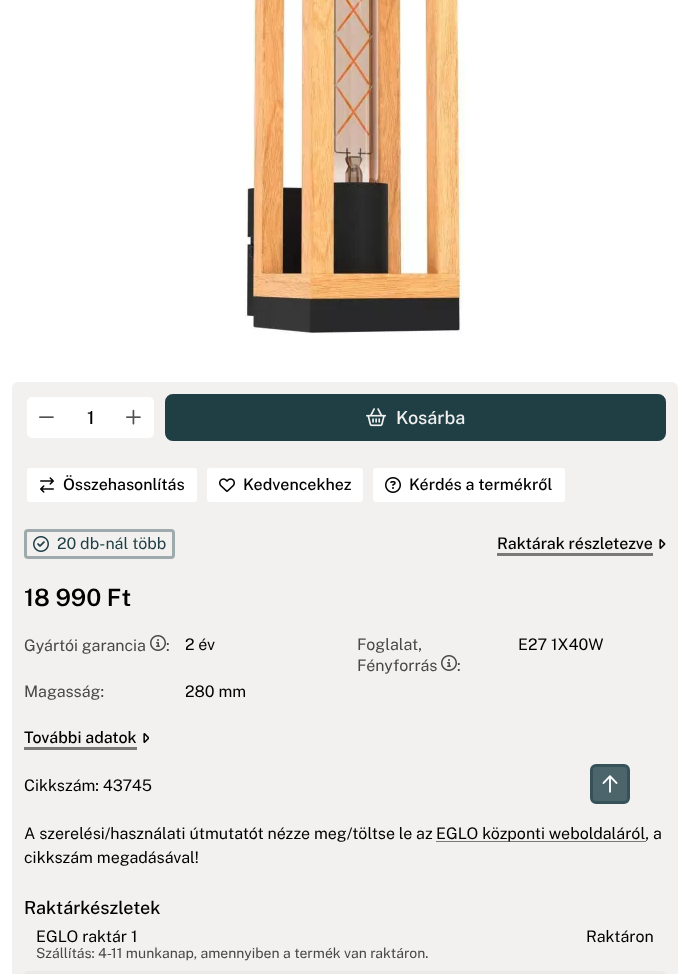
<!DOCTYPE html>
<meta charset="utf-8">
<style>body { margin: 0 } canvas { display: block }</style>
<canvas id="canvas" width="690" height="974"></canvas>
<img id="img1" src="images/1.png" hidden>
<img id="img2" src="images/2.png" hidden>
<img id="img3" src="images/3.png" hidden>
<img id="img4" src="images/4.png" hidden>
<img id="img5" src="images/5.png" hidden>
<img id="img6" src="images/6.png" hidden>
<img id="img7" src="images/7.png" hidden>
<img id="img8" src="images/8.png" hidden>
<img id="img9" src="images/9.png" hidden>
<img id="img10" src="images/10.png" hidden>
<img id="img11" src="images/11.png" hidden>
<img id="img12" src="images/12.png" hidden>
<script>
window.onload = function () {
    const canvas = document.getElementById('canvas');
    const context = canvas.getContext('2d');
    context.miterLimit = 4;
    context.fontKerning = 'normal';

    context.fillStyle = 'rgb(255, 255, 255)';
    context.fillRect(0, 0, 690, 974);
    context.drawImage(document.getElementById('img1'), 245, 0, 220, 334);
    context.fillStyle = 'rgb(242, 241, 240)';
    context.beginPath();
    context.roundRect(12, 382, 666, 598, 6);
    context.fill();
    context.fillStyle = 'rgb(255, 255, 255)';
    context.beginPath();
    context.roundRect(25.5, 395.5, 130, 44, 6.5);
    context.fill();
    context.strokeStyle = 'rgb(242, 241, 240)';
    context.lineWidth = 3;
    context.stroke();
    context.drawImage(document.getElementById('img2'), 39, 416, 15, 2);
    context.drawImage(document.getElementById('img3'), 126, 409, 15, 16);
    context.fillStyle = 'rgb(31, 63, 69)';
    context.beginPath();
    context.roundRect(166.5, 395.5, 498, 44, 6.5);
    context.fill();
    context.strokeStyle = 'rgb(31, 63, 69)';
    context.stroke();
    context.drawImage(document.getElementById('img4'), 366, 408, 20, 19);
    context.fillStyle = 'rgb(255, 255, 255)';
    context.beginPath();
    context.roundRect(25.5, 466.5, 173, 37, 4.5);
    context.fill();
    context.strokeStyle = 'rgb(242, 241, 240)';
    context.stroke();
    context.drawImage(document.getElementById('img5'), 40, 477, 14, 16);
    context.beginPath();
    context.roundRect(205.5, 466.5, 159, 37, 4.5);
    context.fill();
    context.stroke();
    context.drawImage(document.getElementById('img6'), 219, 478, 16, 14);
    context.beginPath();
    context.roundRect(371.5, 466.5, 195, 37, 4.5);
    context.fill();
    context.stroke();
    context.drawImage(document.getElementById('img7'), 385, 477, 16, 16);
    context.beginPath();
    context.roundRect(25.5, 530.5, 148, 27, 2.5);
    context.strokeStyle = 'rgb(158, 170, 172)';
    context.stroke();
    context.drawImage(document.getElementById('img8'), 33, 536, 16, 16);
    context.fillStyle = 'rgb(121, 121, 120)';
    context.fillRect(497, 553, 156, 3);
    context.drawImage(document.getElementById('img9'), 659, 539, 7, 10);
    context.drawImage(document.getElementById('img10'), 150, 635, 16, 16);
    context.drawImage(document.getElementById('img10'), 441, 655, 16, 16);
    context.fillRect(24, 747, 113, 3);
    context.drawImage(document.getElementById('img11'), 143, 733, 6, 10);
    context.fillRect(436, 841, 210, 1);
    context.fillStyle = 'rgb(235, 234, 233)';
    context.beginPath();
    context.roundRect(24, 971, 642, 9, 6);
    context.fill();
    context.fillStyle = 'rgb(76, 101, 106)';
    context.beginPath();
    context.roundRect(591.5, 765.5, 37, 37, 4.5);
    context.fill();
    context.strokeStyle = 'rgb(53, 82, 88)';
    context.stroke();
    context.drawImage(document.getElementById('img12'), 602, 775, 16, 18);
    context.font = '500 18px Public Sans';
    context.fillStyle = 'rgb(0, 0, 0)';
    context.fillText('1', 87, 424);
    context.fillStyle = 'rgb(242, 241, 240)';
    context.fillText('Kosárba', 396, 424);
    context.font = '500 16px Public Sans';
    context.fillStyle = 'rgb(0, 0, 0)';
    context.fillText('Összehasonlítás', 63, 490);
    context.fillText('Kedvencekhez', 243, 490);
    context.fillText('Kérdés a termékről', 409, 490);
    context.font = '16px Public Sans';
    context.fillStyle = 'rgb(31, 63, 69)';
    context.fillText('20 db-nál több', 57, 549);
    context.font = '500 16px Public Sans';
    context.fillStyle = 'rgb(0, 0, 0)';
    context.fillText('Raktárak részletezve', 497, 549);
    context.font = '600 24px Public Sans';
    context.fillText('18 990 Ft', 24, 606);
    context.font = '16px Public Sans';
    context.fillStyle = 'rgb(73, 72, 72)';
    context.fillText('Gyártói garancia', 24, 651);
    context.fillText(':', 166, 651);
    context.fillStyle = 'rgb(0, 0, 0)';
    context.fillText('2 év', 185, 650);
    context.fillStyle = 'rgb(73, 72, 72)';
    context.fillText('Foglalat,', 357, 650);
    context.fillText('Fényforrás', 357, 671);
    context.fillText(':', 457, 671);
    context.fillStyle = 'rgb(0, 0, 0)';
    context.fillText('E27 1X40W', 518, 650);
    context.fillStyle = 'rgb(73, 72, 72)';
    context.fillText('Magasság:', 24, 697);
    context.fillStyle = 'rgb(0, 0, 0)';
    context.fillText('280 mm', 185, 697);
    context.font = '500 16px Public Sans';
    context.fillText('További adatok', 24, 743);
    context.font = '16px Public Sans';
    context.fillText('Cikkszám: 43745', 24, 791);
    context.fillText('A szerelési/használati útmutatót nézze meg/töltse le az', 24, 839);
    context.fillText('EGLO központi weboldaláról, a', 436, 839);
    context.fillText('cikkszám megadásával!', 24, 863);
    context.font = '500 18px Public Sans';
    context.fillText('Raktárkészletek', 24, 914);
    context.font = '16px Public Sans';
    context.fillText('EGLO raktár 1', 36, 942);
    context.fillText('Raktáron', 586, 942);
    context.font = '14px Public Sans';
    context.fillStyle = 'rgb(73, 72, 72)';
    context.fillText('Szállítás: 4-11 munkanap, amennyiben a termék van raktáron.', 36, 958);
};
</script>
